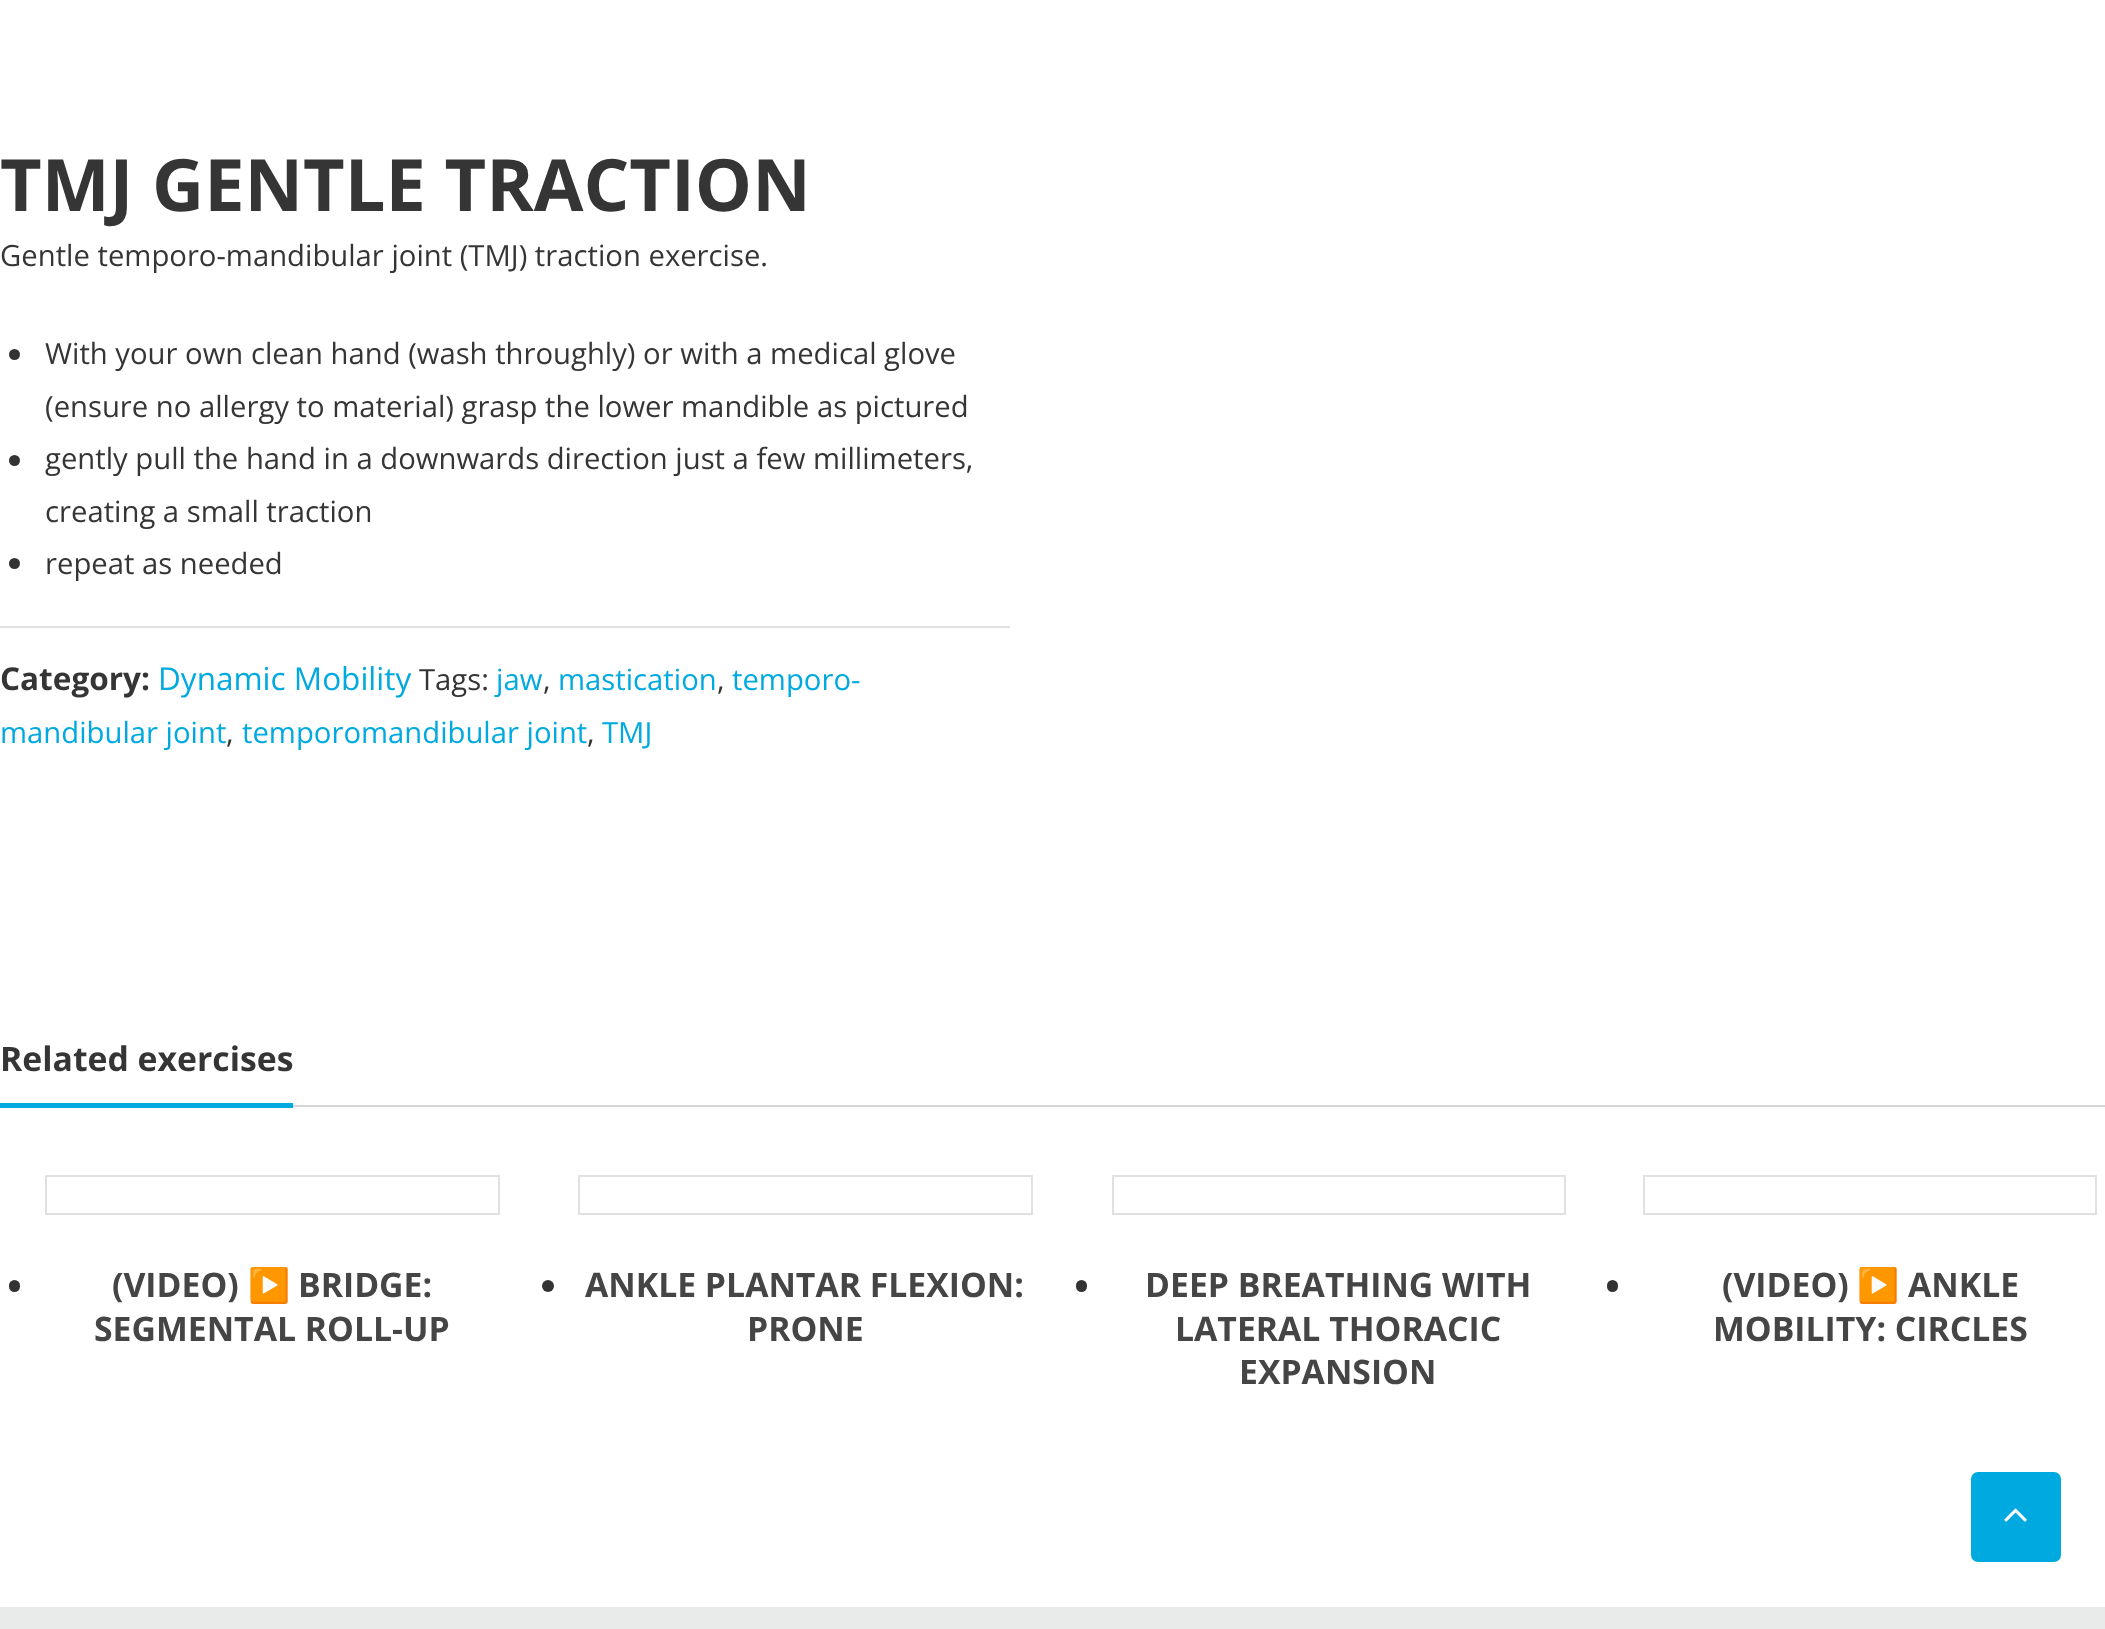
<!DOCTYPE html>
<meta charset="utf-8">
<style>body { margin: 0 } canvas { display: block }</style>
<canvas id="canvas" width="2105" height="1629"></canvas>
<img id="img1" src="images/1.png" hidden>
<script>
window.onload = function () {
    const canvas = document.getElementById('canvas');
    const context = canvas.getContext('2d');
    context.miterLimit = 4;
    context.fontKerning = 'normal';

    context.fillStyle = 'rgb(255, 255, 255)';
    context.fillRect(0, 0, 2105, 1629);
    context.fillStyle = 'rgb(51, 51, 51)';
    context.beginPath();
    context.arc(14.5, 354.5, 5.5, 0, 2 * Math.PI);
    context.fill();
    context.beginPath();
    context.arc(14.5, 460.5, 5.5, 0, 2 * Math.PI);
    context.fill();
    context.beginPath();
    context.arc(14.5, 563.5, 5.5, 0, 2 * Math.PI);
    context.fill();
    context.fillStyle = 'rgb(225, 225, 225)';
    context.fillRect(0, 626, 1010, 2);
    context.fillStyle = 'rgb(214, 214, 214)';
    context.fillRect(293, 1105, 1812, 2);
    context.fillStyle = 'rgb(0, 169, 224)';
    context.fillRect(0, 1103, 293, 5);
    context.strokeStyle = 'rgb(225, 225, 225)';
    context.lineWidth = 2;
    context.strokeRect(46, 1176, 453, 38);
    context.fillStyle = 'rgb(51, 51, 51)';
    context.beginPath();
    context.roundRect(9, 1280, 11, 12, 5.5);
    context.fill();
    context.strokeRect(579, 1176, 453, 38);
    context.beginPath();
    context.arc(548, 1286, 6, 0, 2 * Math.PI);
    context.fill();
    context.strokeRect(1113, 1176, 452, 38);
    context.beginPath();
    context.roundRect(1076, 1280, 11, 12, 5.5);
    context.fill();
    context.strokeRect(1644, 1176, 452, 38);
    context.beginPath();
    context.roundRect(1607, 1280, 11, 12, 5.5);
    context.fill();
    context.fillStyle = 'rgb(0, 169, 224)';
    context.beginPath();
    context.roundRect(1971, 1472, 90, 90, 7);
    context.fill();
    context.drawImage(document.getElementById('img1'), 2004, 1508, 23, 14);
    context.fillStyle = 'rgb(233, 235, 235)';
    context.fillRect(0, 1607, 2105, 22);
    context.font = 'bold 72px Open Sans';
    context.fillStyle = 'rgb(53, 53, 53)';
    context.fillText('TMJ GENTLE TRACTION', 0, 211);
    context.font = '29.25px Open Sans';
    context.fillText('Gentle temporo-mandibular joint (TMJ) traction exercise.', 0, 266);
    context.fillText('With your own clean hand (wash throughly) or with a medical glove', 45, 364);
    context.fillText('(ensure no allergy to material) grasp the lower mandible as pictured', 45, 417);
    context.fillText('gently pull the hand in a downwards direction just a few millimeters,', 45, 469);
    context.fillText('creating a small traction', 45, 522);
    context.fillText('repeat as needed', 45, 574);
    context.font = 'bold 31.5px Open Sans';
    context.fillText('Category:', 0, 690);
    context.font = '31.5px Open Sans';
    context.fillStyle = 'rgb(0, 169, 224)';
    context.fillText('Dynamic Mobility', 158, 690);
    context.font = '29.25px Open Sans';
    context.fillStyle = 'rgb(53, 53, 53)';
    context.fillText('Tags:', 419, 690);
    context.fillStyle = 'rgb(0, 169, 224)';
    context.fillText('jaw', 496, 690);
    context.fillStyle = 'rgb(53, 53, 53)';
    context.fillText(',', 543, 690);
    context.fillStyle = 'rgb(0, 169, 224)';
    context.fillText('mastication', 558, 690);
    context.fillStyle = 'rgb(53, 53, 53)';
    context.fillText(',', 717, 690);
    context.fillStyle = 'rgb(0, 169, 224)';
    context.fillText('temporo-', 732, 690);
    context.fillText('mandibular joint', 0, 743);
    context.fillStyle = 'rgb(53, 53, 53)';
    context.fillText(',', 226, 743);
    context.fillStyle = 'rgb(0, 169, 224)';
    context.fillText('temporomandibular joint', 242, 743);
    context.fillStyle = 'rgb(53, 53, 53)';
    context.fillText(',', 587, 743);
    context.fillStyle = 'rgb(0, 169, 224)';
    context.fillText('TMJ', 602, 743);
    context.font = 'bold 33.75px Open Sans';
    context.fillStyle = 'rgb(53, 53, 53)';
    context.fillText('Related exercises', 0, 1071);
    context.fillStyle = 'rgb(69, 69, 69)';
    context.fillText('(VIDEO)', 112, 1297);
    context.font = 'bold 33.75px Noto Color Emoji';
    context.fillText('▶️', 248, 1297);
    context.font = 'bold 33.75px Open Sans';
    context.fillText('BRIDGE:', 298, 1297);
    context.fillText('SEGMENTAL ROLL-UP', 94, 1341);
    context.fillText('ANKLE PLANTAR FLEXION:', 585, 1297);
    context.fillText('PRONE', 747, 1341);
    context.fillText('DEEP BREATHING WITH', 1145, 1297);
    context.fillText('LATERAL THORACIC', 1175, 1341);
    context.fillText('EXPANSION', 1239, 1384);
    context.fillText('(VIDEO)', 1722, 1297);
    context.font = 'bold 33.75px Noto Color Emoji';
    context.fillText('▶️', 1857, 1297);
    context.font = 'bold 33.75px Open Sans';
    context.fillText('ANKLE', 1908, 1297);
    context.fillText('MOBILITY: CIRCLES', 1713, 1341);
};
</script>
